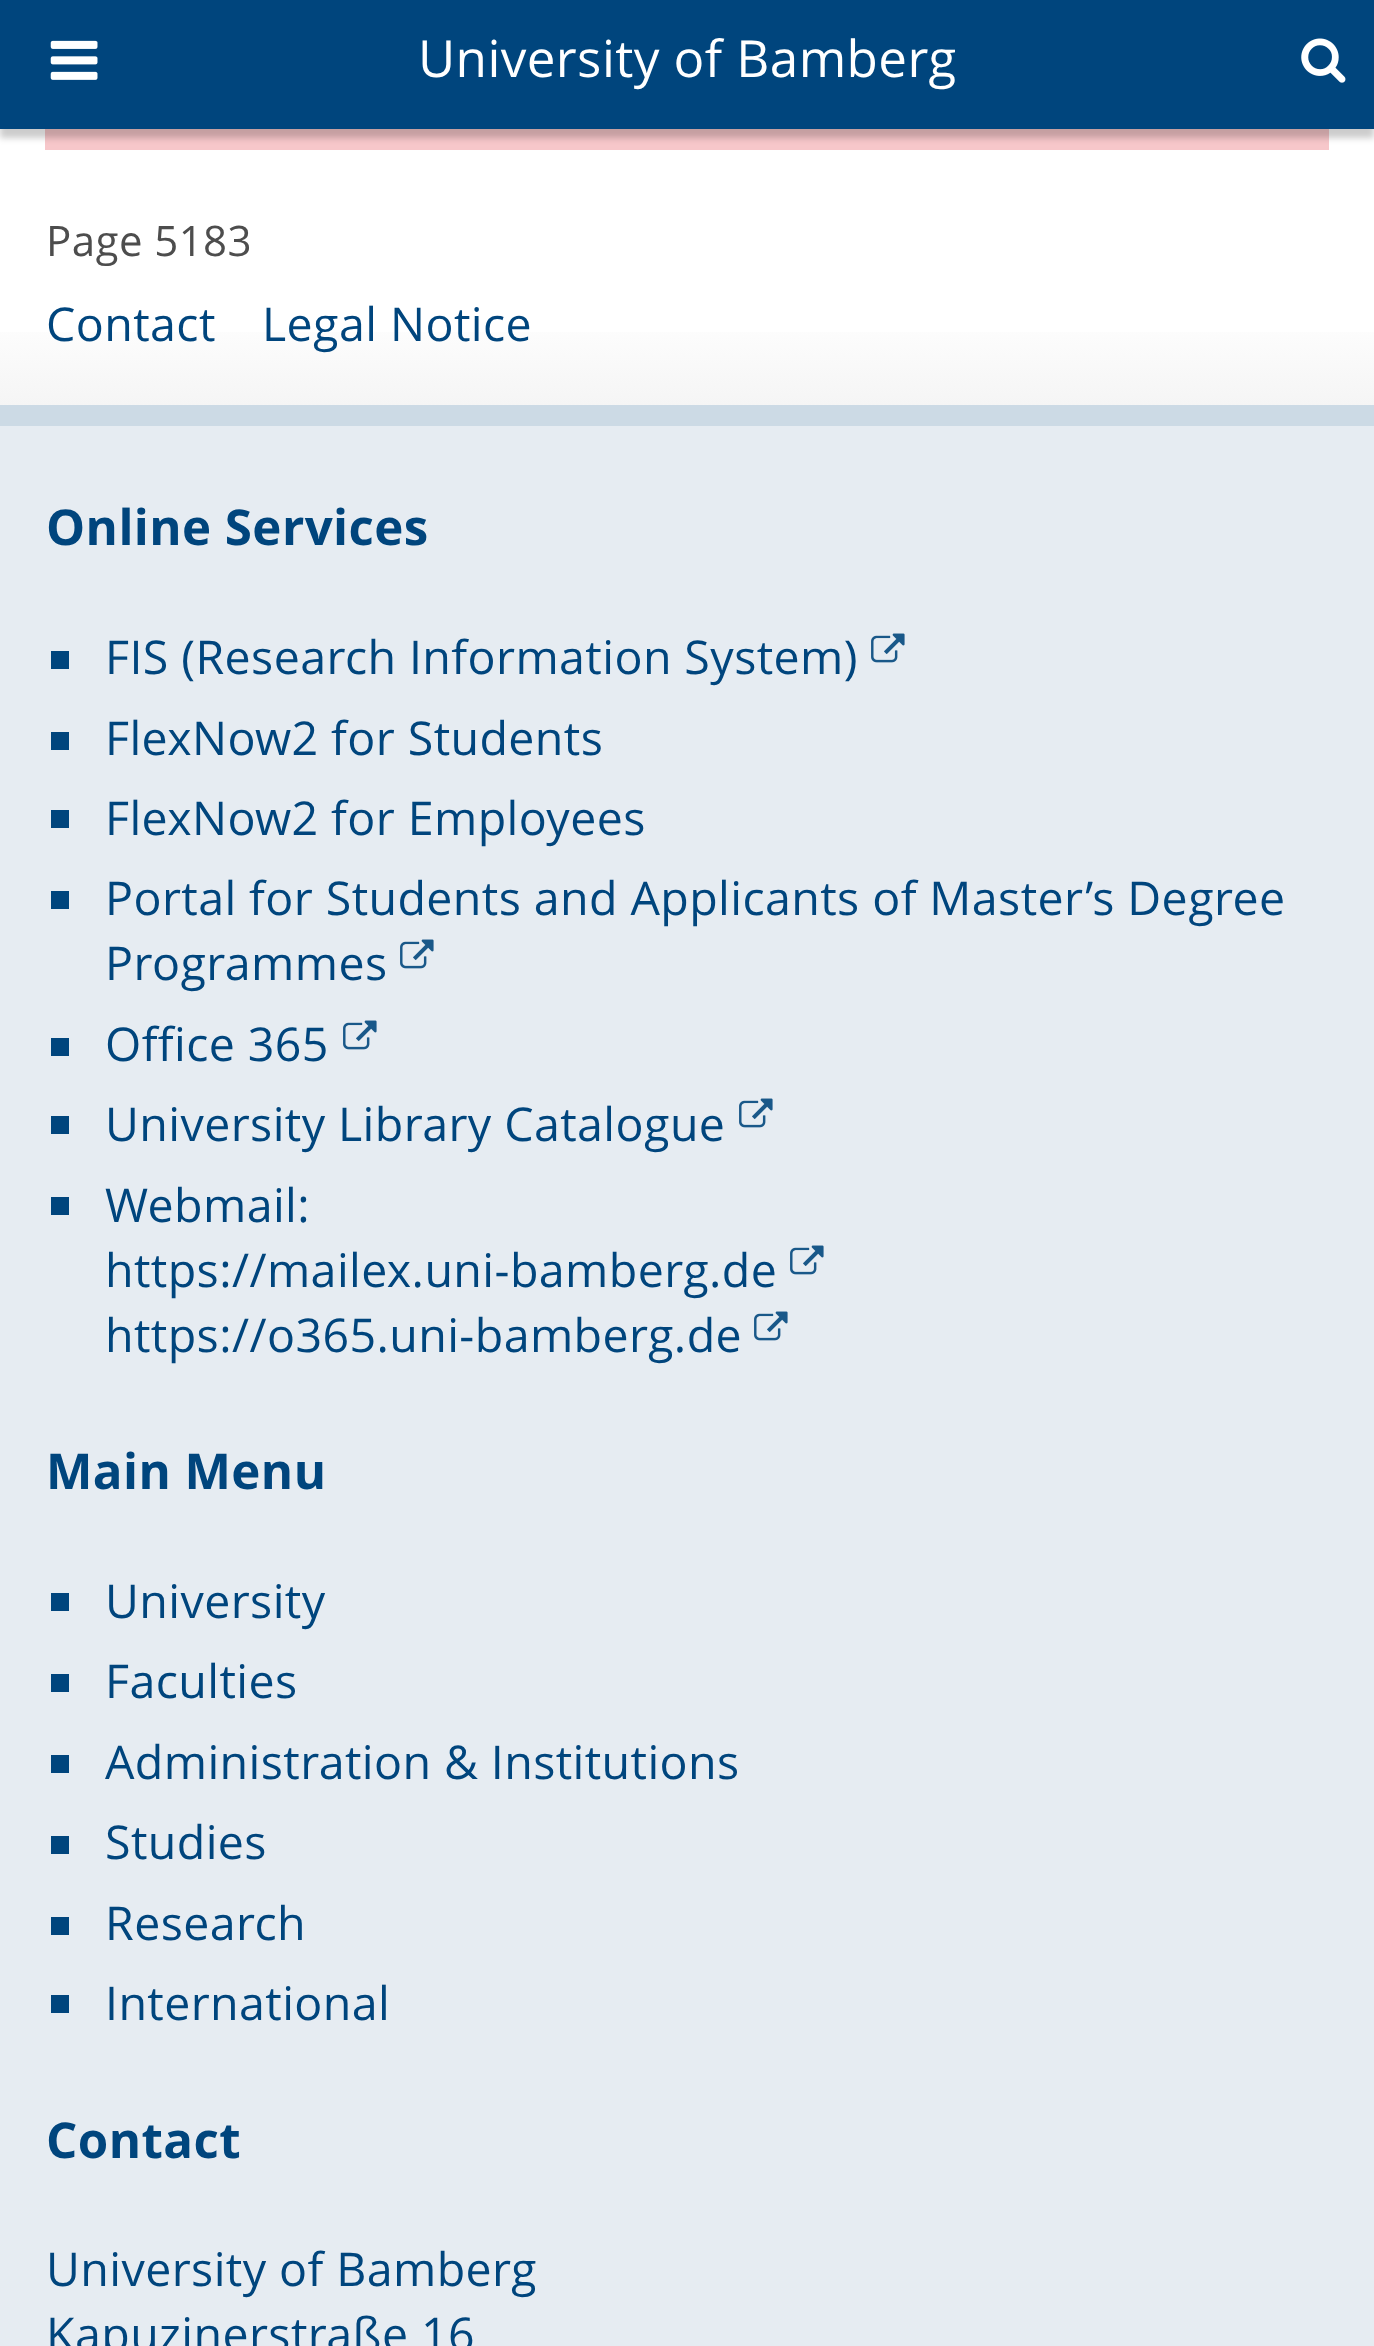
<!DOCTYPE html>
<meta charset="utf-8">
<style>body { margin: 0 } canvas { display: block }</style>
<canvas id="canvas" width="1374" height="2346"></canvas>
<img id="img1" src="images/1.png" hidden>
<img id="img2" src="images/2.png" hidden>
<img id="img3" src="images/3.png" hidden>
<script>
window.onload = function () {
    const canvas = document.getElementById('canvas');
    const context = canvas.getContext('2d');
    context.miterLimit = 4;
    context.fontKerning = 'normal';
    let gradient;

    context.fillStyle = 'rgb(255, 255, 255)';
    context.fillRect(0, 0, 1374, 2346);
    context.fillStyle = 'rgb(247, 199, 202)';
    context.fillRect(45, 129, 1284, 21);
    context.fillStyle = 'rgba(0, 0, 0, 0.2)';
    context.filter = 'blur(3px)';
    context.beginPath();
    context.rect(0, 9, 1374, 129);
    context.fill();
    context.filter = 'none';
    context.fillStyle = 'rgb(0, 69, 125)';
    context.fillRect(0, 0, 1374, 129);
    context.drawImage(document.getElementById('img1'), 50, 40, 48, 40);
    context.drawImage(document.getElementById('img2'), 1301, 38, 45, 45);
    gradient = context.createLinearGradient(687, 210, 687, 405);
    gradient.addColorStop(0.5, 'rgb(255, 255, 255)');
    gradient.addColorStop(1, 'rgb(245, 245, 245)');
    context.fillStyle = gradient;
    context.fillRect(0, 332, 1374, 73);
    context.fillStyle = 'rgb(204, 218, 229)';
    context.fillRect(0, 405, 1374, 21);
    context.fillStyle = 'rgb(230, 236, 242)';
    context.fillRect(0, 426, 1374, 1920);
    context.fillStyle = 'rgb(0, 69, 125)';
    context.fillRect(51, 651, 18, 18);
    context.drawImage(document.getElementById('img3'), 871, 633, 34, 30);
    context.fillRect(51, 732, 18, 18);
    context.fillRect(51, 810, 18, 18);
    context.fillRect(51, 891, 18, 18);
    context.drawImage(document.getElementById('img3'), 400, 939, 34, 30);
    context.fillRect(51, 1038, 18, 18);
    context.drawImage(document.getElementById('img3'), 343, 1020, 34, 30);
    context.fillRect(51, 1116, 18, 18);
    context.drawImage(document.getElementById('img3'), 739, 1098, 34, 30);
    context.fillRect(51, 1197, 18, 18);
    context.drawImage(document.getElementById('img3'), 790, 1245, 34, 30);
    context.drawImage(document.getElementById('img3'), 754, 1311, 34, 30);
    context.fillRect(51, 1593, 18, 18);
    context.fillRect(51, 1674, 18, 18);
    context.fillRect(51, 1755, 18, 18);
    context.fillRect(51, 1836, 18, 18);
    context.fillRect(51, 1917, 18, 18);
    context.fillRect(51, 1995, 18, 18);
    context.letterSpacing = '0.42px';
    context.font = '51.1px Open Sans';
    context.fillStyle = 'rgb(255, 255, 255)';
    context.fillText('University of Bamberg', 418, 77);
    context.font = '42px Open Sans';
    context.fillStyle = 'rgb(77, 77, 77)';
    context.fillText('Page 5183', 46, 256);
    context.font = '46.5px Open Sans';
    context.fillStyle = 'rgb(0, 69, 125)';
    context.fillText('Contact', 46, 341);
    context.fillText('Legal Notice', 262, 341);
    context.font = 'bold 49.25px Open Sans';
    context.fillText('Online Services', 46, 545);
    context.font = '46.5px Open Sans';
    context.fillText('FIS (Research Information System)', 105, 674);
    context.fillText('FlexNow2 for Students', 105, 755);
    context.fillText('FlexNow2 for Employees', 105, 835);
    context.fillText('Portal for Students and Applicants of Master’s Degree', 105, 915);
    context.fillText('Programmes', 105, 980);
    context.fillText('Office 365', 105, 1061);
    context.fillText('University Library Catalogue', 105, 1141);
    context.fillText('Webmail:', 105, 1222);
    context.fillText('https://mailex.uni-bamberg.de', 105, 1287);
    context.fillText('https://o365.uni-bamberg.de', 105, 1352);
    context.font = 'bold 49.25px Open Sans';
    context.fillText('Main Menu', 46, 1489);
    context.font = '46.5px Open Sans';
    context.fillText('University', 105, 1618);
    context.fillText('Faculties', 105, 1698);
    context.fillText('Administration & Institutions', 105, 1779);
    context.fillText('Studies', 105, 1859);
    context.fillText('Research', 105, 1940);
    context.fillText('International', 105, 2020);
    context.font = 'bold 49.25px Open Sans';
    context.fillText('Contact', 46, 2158);
    context.font = '46.5px Open Sans';
    context.fillText('University of Bamberg', 46, 2286);
    context.fillText('Kapuzinerstraße 16', 46, 2351);
};
</script>
